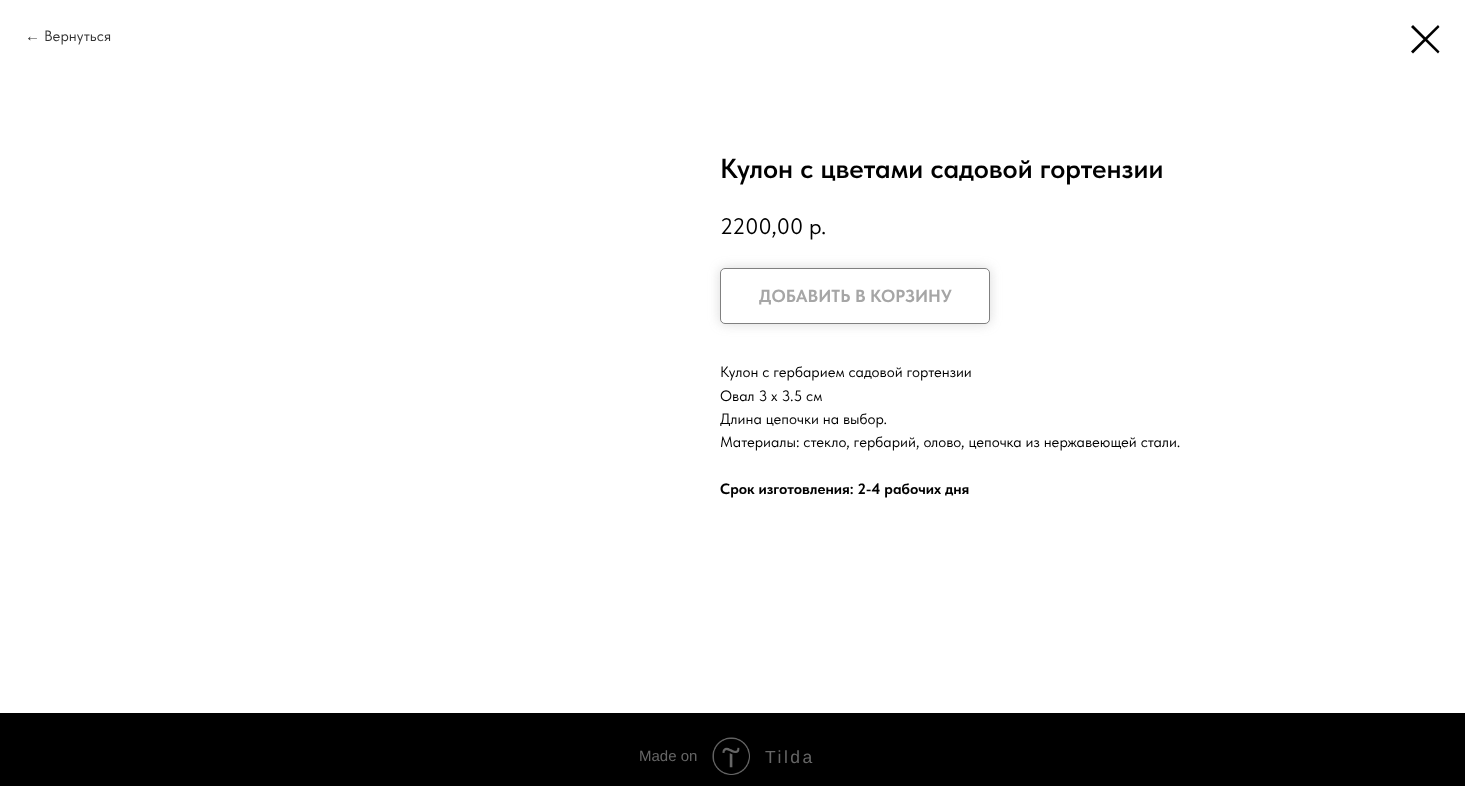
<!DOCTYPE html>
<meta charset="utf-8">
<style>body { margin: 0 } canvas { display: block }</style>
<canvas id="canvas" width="1465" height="786"></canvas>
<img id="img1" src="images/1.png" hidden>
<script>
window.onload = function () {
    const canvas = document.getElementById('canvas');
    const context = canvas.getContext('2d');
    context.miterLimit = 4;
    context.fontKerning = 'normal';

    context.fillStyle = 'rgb(255, 255, 255)';
    context.fillRect(0, 0, 1465, 786);
    context.fillStyle = 'rgb(0, 0, 0)';
    context.beginPath();
    context.moveTo(1411, 27);
    context.lineTo(1413, 25);
    context.lineTo(1439.5, 51.5);
    context.lineTo(1438, 53.5);
    context.closePath();
    context.fill('evenodd');
    context.beginPath();
    context.moveTo(1438, 25);
    context.lineTo(1439.5, 27);
    context.lineTo(1413, 53.5);
    context.lineTo(1411, 51.5);
    context.closePath();
    context.fill('evenodd');
    context.fillStyle = 'rgba(128, 128, 128, 0.3)';
    context.filter = 'blur(6px)';
    context.beginPath();
    context.roundRect(720, 268, 270, 56, 5);
    context.fill();
    context.filter = 'none';
    context.fillStyle = 'rgb(255, 255, 255)';
    context.beginPath();
    context.roundRect(720.5, 268.5, 269, 55, 4.5);
    context.fill();
    context.strokeStyle = 'rgb(128, 128, 128)';
    context.stroke();
    context.fillStyle = 'rgb(0, 0, 0)';
    context.fillRect(0, 713, 1465, 73);
    context.drawImage(document.getElementById('img1'), 712, 737, 38, 38);
    context.font = '15px Liberation Sans';
    context.fillStyle = 'rgb(51, 51, 51)';
    context.fillText('←', 25, 41);
    context.font = '15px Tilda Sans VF';
    context.fillText('Вернуться', 44, 41);
    context.font = '600 27.5px Tilda Sans VF';
    context.fillStyle = 'rgb(0, 0, 0)';
    context.fillText('Кулон с цветами садовой гортензии', 720, 178);
    context.font = '22.5px Tilda Sans VF';
    context.fillText('2200,00', 720, 234);
    context.fillText('р.', 809, 234);
    context.font = 'bold 17.5px Tilda Sans VF';
    context.fillStyle = 'rgb(166, 166, 166)';
    context.fillText('ДОБАВИТЬ В КОРЗИНУ', 759, 302);
    context.font = '15px Tilda Sans VF';
    context.fillStyle = 'rgb(0, 0, 0)';
    context.fillText('Кулон с гербарием садовой гортензии', 720, 377);
    context.fillText('Овал 3 х 3.5 см', 720, 401);
    context.fillText('Длина цепочки на выбор.', 720, 424);
    context.fillText('Материалы: стекло, гербарий, олово, цепочка из нержавеющей стали.', 720, 447);
    context.font = 'bold 15px Tilda Sans VF';
    context.fillText('Срок изготовления: 2-4 рабочих дня', 720, 494);
    context.font = '15px Liberation Sans';
    context.fillStyle = 'rgb(102, 102, 102)';
    context.fillText('Made on', 639, 761);
    context.letterSpacing = '2.5px';
    context.font = '17.5px Liberation Sans';
    context.fillText('Tilda', 765, 763);
};
</script>
